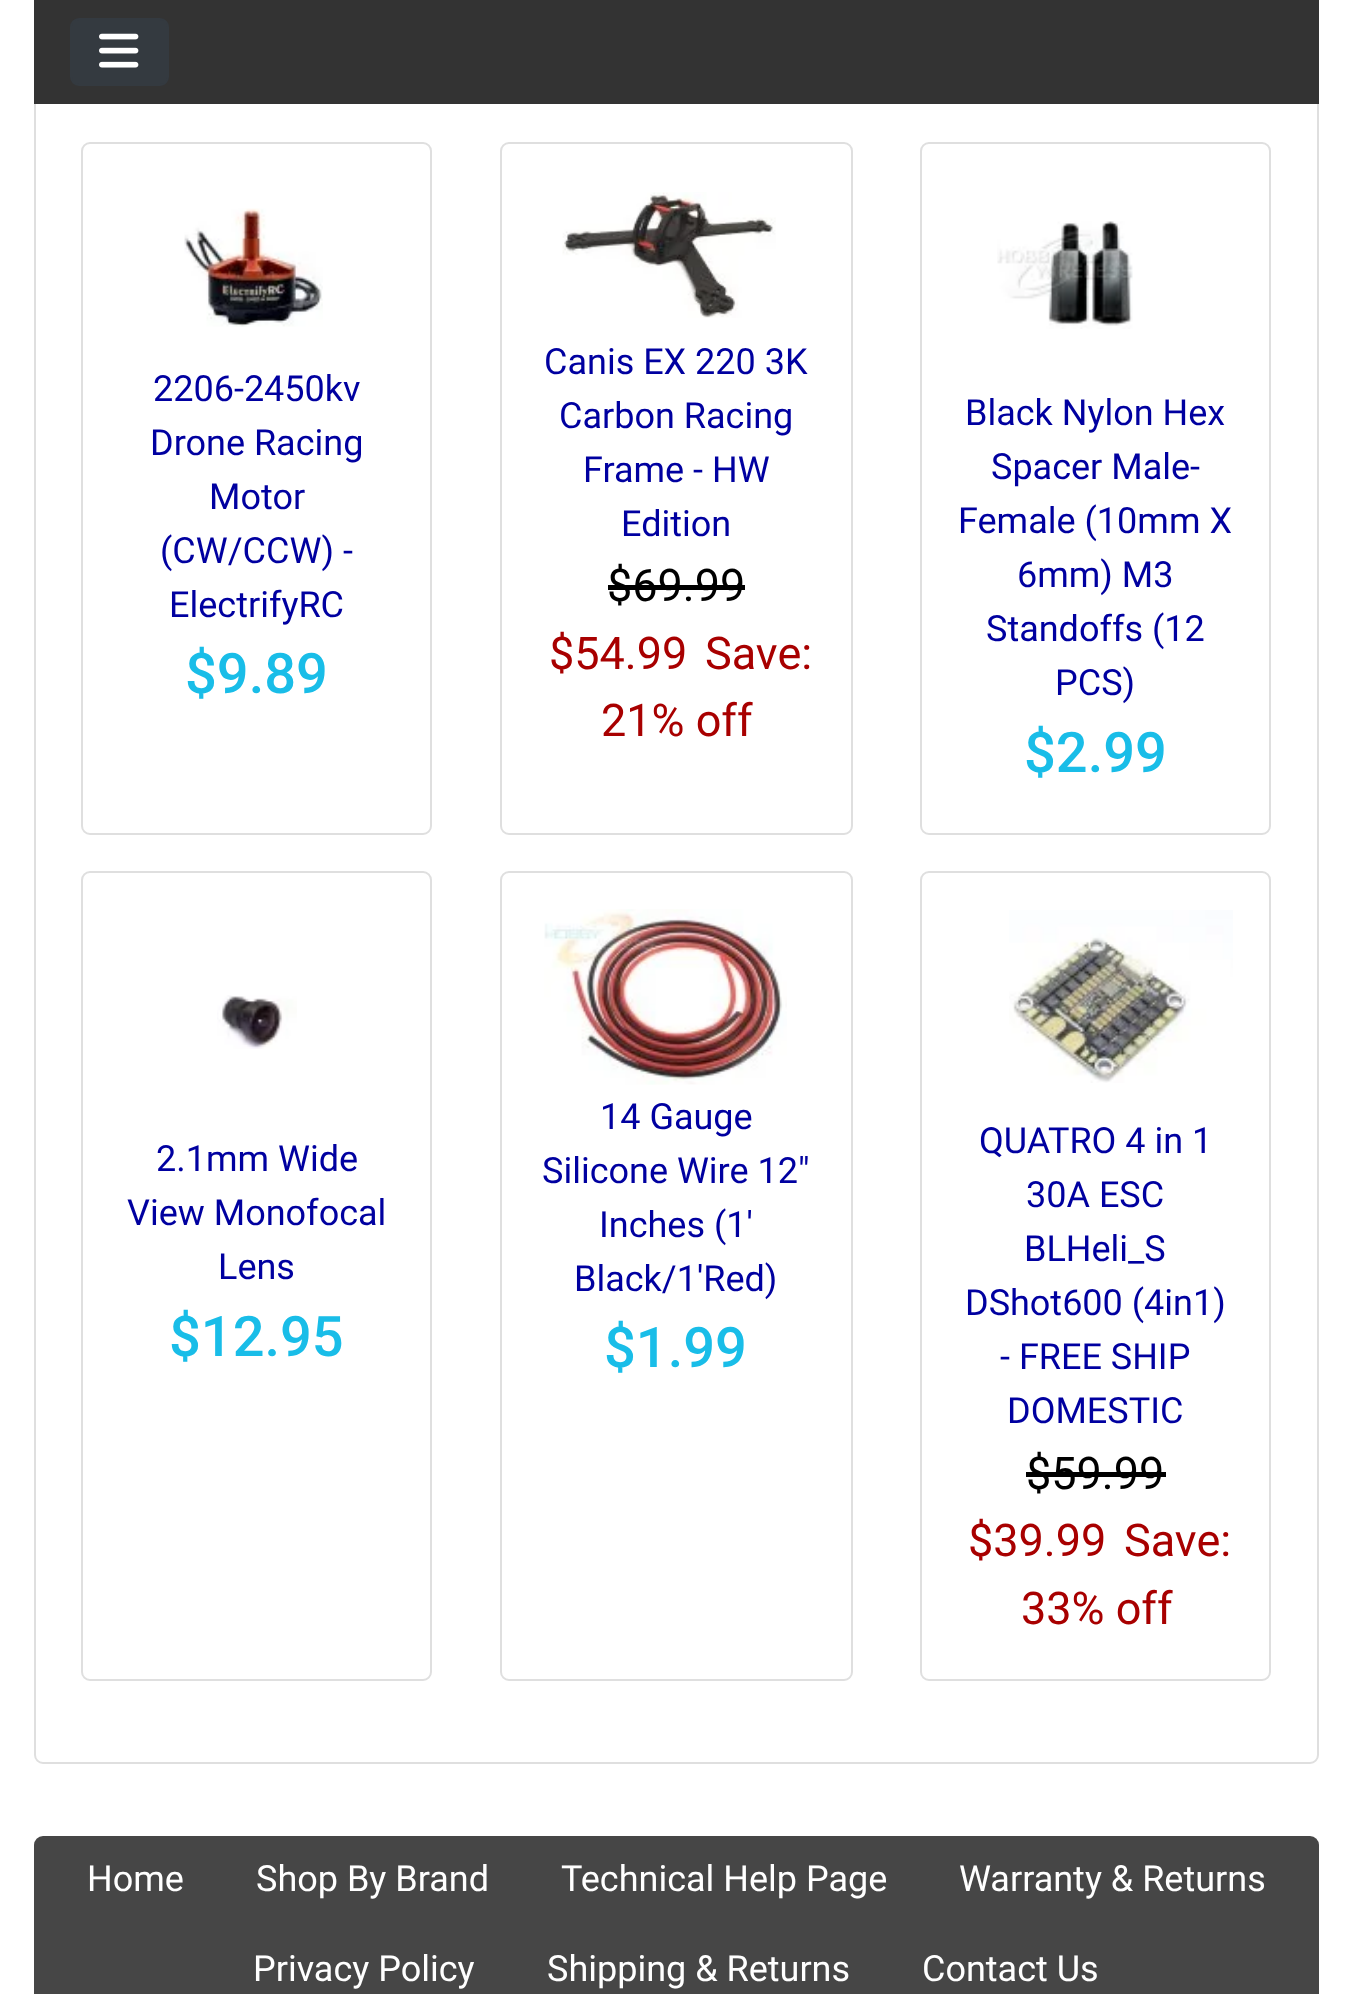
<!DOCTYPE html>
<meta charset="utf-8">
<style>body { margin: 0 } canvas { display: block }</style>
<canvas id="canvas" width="1351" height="1994"></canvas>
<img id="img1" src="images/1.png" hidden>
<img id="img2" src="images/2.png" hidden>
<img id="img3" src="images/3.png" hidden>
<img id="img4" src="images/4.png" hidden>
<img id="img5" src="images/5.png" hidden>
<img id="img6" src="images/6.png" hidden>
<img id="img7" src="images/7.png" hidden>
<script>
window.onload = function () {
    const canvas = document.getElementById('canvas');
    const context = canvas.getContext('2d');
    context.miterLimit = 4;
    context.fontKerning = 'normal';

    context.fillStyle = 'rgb(255, 255, 255)';
    context.fillRect(0, 0, 1351, 1994);
    context.beginPath();
    context.roundRect(35, -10, 1283, 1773, 8);
    context.strokeStyle = 'rgb(223, 223, 223)';
    context.lineWidth = 2;
    context.stroke();
    context.fillStyle = 'rgb(51, 51, 51)';
    context.fillRect(34, 0, 1285, 104);
    context.fillStyle = 'rgb(52, 58, 64)';
    context.beginPath();
    context.roundRect(71, 19, 97, 66, 8);
    context.fill();
    context.strokeStyle = 'rgb(52, 58, 64)';
    context.stroke();
    context.drawImage(document.getElementById('img1'), 99, 33, 40, 35);
    context.beginPath();
    context.roundRect(82, 143, 349, 691, 8);
    context.strokeStyle = 'rgb(223, 223, 223)';
    context.stroke();
    context.drawImage(document.getElementById('img2'), 184, 208, 139, 119);
    context.beginPath();
    context.roundRect(501, 143, 351, 691, 8);
    context.stroke();
    context.drawImage(document.getElementById('img3'), 562, 192, 214, 126);
    context.fillStyle = 'rgb(0, 0, 0)';
    context.fillRect(608, 585, 137, 5);
    context.beginPath();
    context.roundRect(921, 143, 349, 691, 8);
    context.stroke();
    context.drawImage(document.getElementById('img4'), 997, 221, 136, 108);
    context.beginPath();
    context.roundRect(82, 872, 349, 808, 8);
    context.stroke();
    context.drawImage(document.getElementById('img5'), 217, 995, 80, 54);
    context.beginPath();
    context.roundRect(501, 872, 351, 808, 8);
    context.stroke();
    context.drawImage(document.getElementById('img6'), 544, 909, 243, 176);
    context.beginPath();
    context.roundRect(921, 872, 349, 808, 8);
    context.stroke();
    context.drawImage(document.getElementById('img7'), 1009, 910, 224, 173);
    context.fillRect(1026, 1472, 140, 5);
    context.fillStyle = 'rgb(70, 70, 70)';
    context.beginPath();
    context.roundRect(34, 1836, 1285, 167, 9);
    context.fill();
    context.font = '36px Roboto';
    context.fillStyle = 'rgb(0, 0, 160)';
    context.fillText('2206-2450kv', 153, 401);
    context.fillText('Drone Racing', 150, 455);
    context.fillText('Motor', 209, 509);
    context.fillText('(CW/CCW) -', 160, 563);
    context.fillText('ElectrifyRC', 169, 617);
    context.font = '500 56px Roboto';
    context.fillStyle = 'rgb(25, 189, 232)';
    context.fillText('$9.89', 185, 693);
    context.font = '36px Roboto';
    context.fillStyle = 'rgb(0, 0, 160)';
    context.fillText('Canis EX 220 3K', 544, 374);
    context.fillText('Carbon Racing', 559, 428);
    context.fillText('Frame - HW', 583, 482);
    context.fillText('Edition', 621, 536);
    context.font = '45px Roboto';
    context.fillStyle = 'rgb(0, 0, 0)';
    context.fillText('$69.99', 607, 601);
    context.fillStyle = 'rgb(168, 0, 0)';
    context.fillText('$54.99', 549, 669);
    context.fillText('Save:', 705, 669);
    context.fillText('21% off', 601, 736);
    context.font = '36px Roboto';
    context.fillStyle = 'rgb(0, 0, 160)';
    context.fillText('Black Nylon Hex', 965, 425);
    context.fillText('Spacer Male-', 991, 479);
    context.fillText('Female (10mm X', 958, 533);
    context.fillText('6mm) M3', 1017, 587);
    context.fillText('Standoffs (12', 986, 641);
    context.fillText('PCS)', 1055, 695);
    context.font = '500 56px Roboto';
    context.fillStyle = 'rgb(25, 189, 232)';
    context.fillText('$2.99', 1024, 772);
    context.font = '36px Roboto';
    context.fillStyle = 'rgb(0, 0, 160)';
    context.fillText('2.1mm Wide', 156, 1171);
    context.fillText('View Monofocal', 127, 1225);
    context.fillText('Lens', 218, 1279);
    context.font = '500 56px Roboto';
    context.fillStyle = 'rgb(25, 189, 232)';
    context.fillText('$12.95', 169, 1356);
    context.font = '36px Roboto';
    context.fillStyle = 'rgb(0, 0, 160)';
    context.fillText('14 Gauge', 600, 1129);
    context.fillText('Silicone Wire 12"', 542, 1183);
    context.fillText('Inches (1\'', 599, 1237);
    context.fillText('Black/1\'Red)', 574, 1291);
    context.font = '500 56px Roboto';
    context.fillStyle = 'rgb(25, 189, 232)';
    context.fillText('$1.99', 604, 1367);
    context.font = '36px Roboto';
    context.fillStyle = 'rgb(0, 0, 160)';
    context.fillText('QUATRO 4 in 1', 979, 1153);
    context.fillText('30A ESC', 1026, 1207);
    context.fillText('BLHeli_S', 1024, 1261);
    context.fillText('DShot600 (4in1)', 965, 1315);
    context.fillText('- FREE SHIP', 1000, 1369);
    context.fillText('DOMESTIC', 1007, 1423);
    context.font = '45px Roboto';
    context.fillStyle = 'rgb(0, 0, 0)';
    context.fillText('$59.99', 1026, 1489);
    context.fillStyle = 'rgb(168, 0, 0)';
    context.fillText('$39.99', 968, 1556);
    context.fillText('Save:', 1124, 1556);
    context.fillText('33% off', 1021, 1624);
    context.font = '36px Roboto';
    context.fillStyle = 'rgb(255, 255, 255)';
    context.fillText('Home', 87, 1891);
    context.fillText('Shop By Brand', 256, 1891);
    context.fillText('Technical Help Page', 561, 1891);
    context.fillText('Warranty & Returns', 959, 1891);
    context.fillText('Privacy Policy', 253, 1981);
    context.fillText('Shipping & Returns', 547, 1981);
    context.fillText('Contact Us', 922, 1981);
};
</script>
